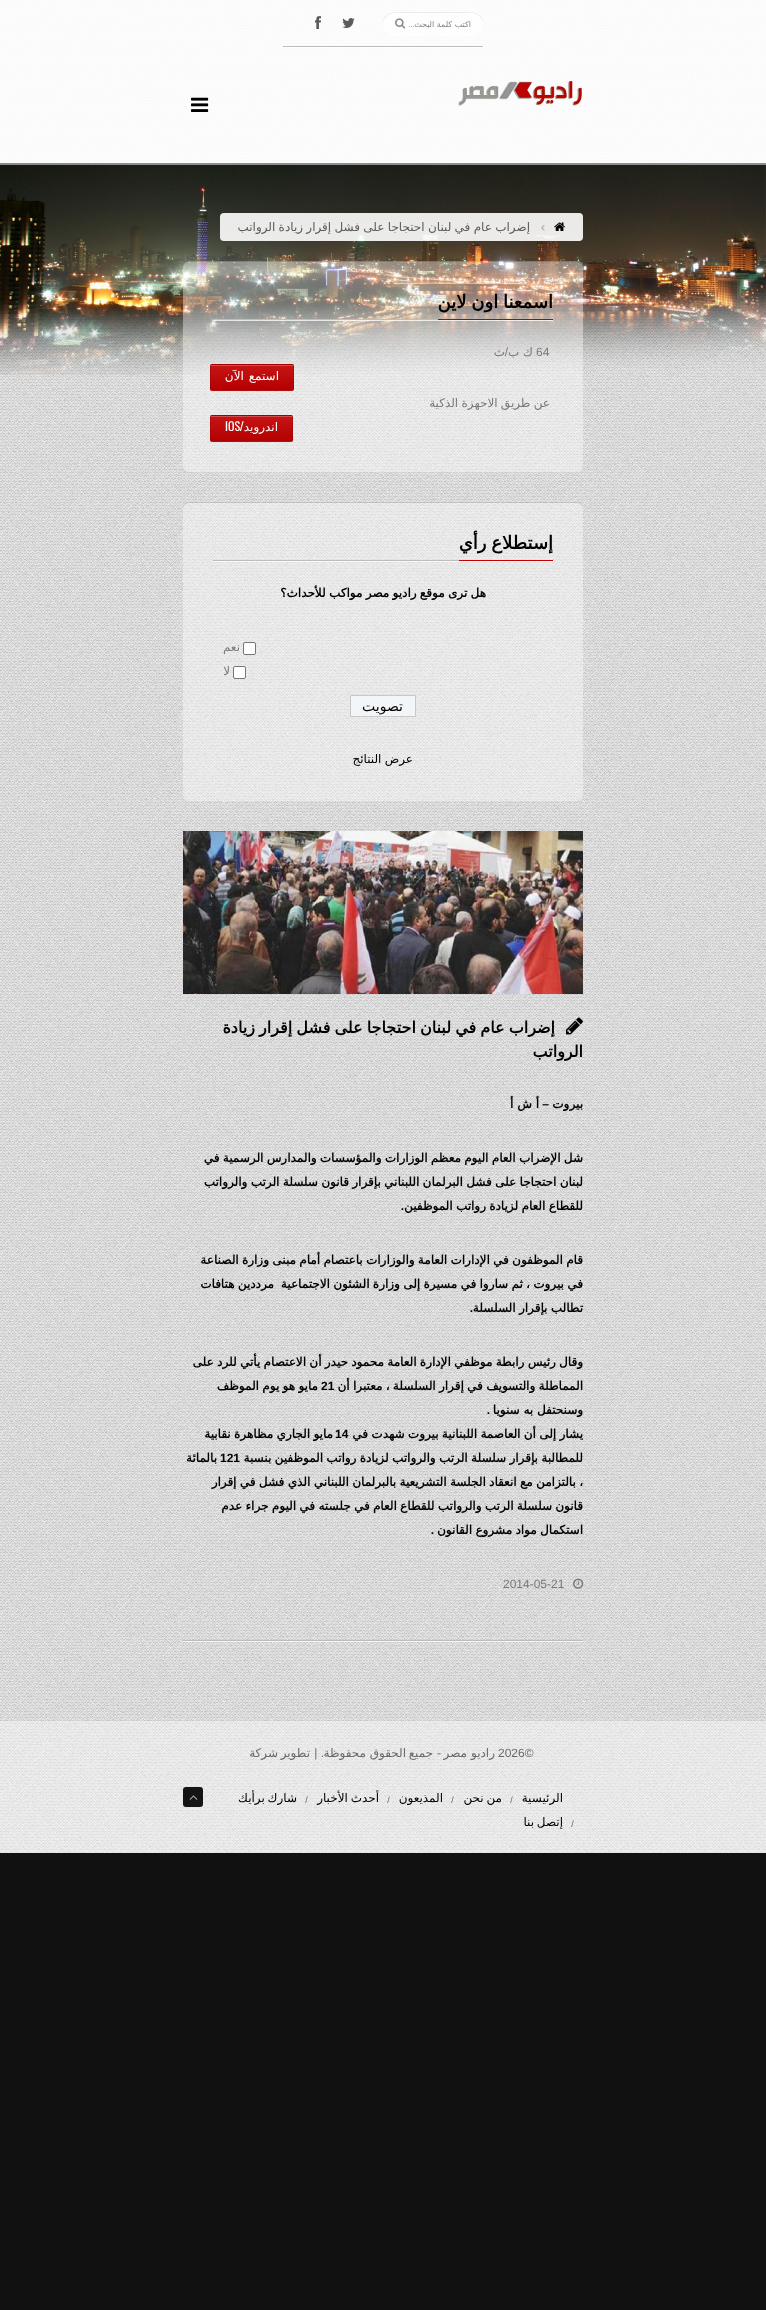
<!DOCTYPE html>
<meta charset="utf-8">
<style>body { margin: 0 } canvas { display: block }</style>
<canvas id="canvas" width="766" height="2310"></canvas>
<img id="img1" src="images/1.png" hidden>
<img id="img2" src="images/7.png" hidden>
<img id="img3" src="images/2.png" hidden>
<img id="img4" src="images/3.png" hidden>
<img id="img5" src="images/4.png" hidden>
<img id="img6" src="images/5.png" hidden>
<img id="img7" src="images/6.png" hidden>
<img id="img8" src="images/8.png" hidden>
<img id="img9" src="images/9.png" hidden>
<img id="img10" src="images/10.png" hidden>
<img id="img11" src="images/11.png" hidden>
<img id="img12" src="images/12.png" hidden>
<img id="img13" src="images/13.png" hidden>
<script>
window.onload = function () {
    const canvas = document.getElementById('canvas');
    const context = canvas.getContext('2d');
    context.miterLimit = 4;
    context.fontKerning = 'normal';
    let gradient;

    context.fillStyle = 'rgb(17, 17, 17)';
    context.fillRect(0, 0, 766, 2310);
    context.drawImage(document.getElementById('img1'), 0, 0, 766, 1853);
    context.drawImage(document.getElementById('img2'), 0, 163, 766, 212);
    context.fillStyle = 'rgba(255, 255, 255, 0.5)';
    context.fillRect(0, 163, 766, 2);
    context.fillStyle = 'rgba(255, 255, 255, 0.9)';
    context.fillRect(0, 0, 766, 163);
    context.fillStyle = 'rgba(255, 255, 255, 0.75)';
    context.fillRect(283, 47, 200, 1);
    context.fillStyle = 'rgb(189, 189, 189)';
    context.fillRect(283, 46, 200, 1);
    context.fillStyle = 'rgba(255, 255, 255, 0.6)';
    context.beginPath();
    context.roundRect(383, 12, 100, 24, 12);
    context.fill();
    context.fillStyle = 'rgba(0, 0, 0, 0.07)';
    context.beginPath();
    context.moveTo(395, 13);
    context.lineTo(471, 13);
    context.bezierCurveTo(478, 13, 483, 18, 483, 24);
    context.bezierCurveTo(484, 10, 468, 12, 458, 12);
    context.lineTo(408, 12);
    context.bezierCurveTo(398, 12, 382, 10, 383, 24);
    context.bezierCurveTo(383, 18, 388, 13, 395, 13);
    context.closePath();
    context.fill();
    context.drawImage(document.getElementById('img3'), 395, 18, 11, 11);
    context.drawImage(document.getElementById('img4'), 342, 18, 13, 10);
    context.drawImage(document.getElementById('img5'), 315, 16, 6, 13);
    context.drawImage(document.getElementById('img6'), 458, 81, 124, 25);
    context.drawImage(document.getElementById('img7'), 191, 97, 18, 15);
    context.fillStyle = 'rgba(255, 255, 255, 0.9)';
    context.beginPath();
    context.roundRect(220, 213, 363, 28, 4);
    context.fill();
    context.drawImage(document.getElementById('img8'), 554, 222, 11, 9);
    context.drawImage(document.getElementById('img9'), 541, 225, 4, 6);
    context.fillStyle = 'rgba(255, 255, 255, 0.04)';
    context.beginPath();
    context.moveTo(183, 466);
    context.lineTo(183, 467);
    context.bezierCurveTo(183, 470, 186, 473, 189, 473);
    context.lineTo(577, 473);
    context.bezierCurveTo(580, 473, 583, 470, 583, 467);
    context.lineTo(583, 466);
    context.bezierCurveTo(583, 469, 580, 472, 577, 472);
    context.lineTo(189, 472);
    context.bezierCurveTo(186, 472, 183, 469, 183, 466);
    context.closePath();
    context.fill();
    context.fillStyle = 'rgba(255, 255, 255, 0.4)';
    context.beginPath();
    context.roundRect(183, 261, 400, 211, 6);
    context.fill();
    context.fillStyle = 'rgba(0, 0, 0, 0.15)';
    context.beginPath();
    context.moveTo(189, 262);
    context.lineTo(577, 262);
    context.bezierCurveTo(580, 262, 583, 265, 583, 268);
    context.lineTo(583, 267);
    context.bezierCurveTo(583, 264, 580, 261, 577, 261);
    context.lineTo(189, 261);
    context.bezierCurveTo(186, 261, 183, 264, 183, 267);
    context.lineTo(183, 268);
    context.bezierCurveTo(183, 265, 186, 262, 189, 262);
    context.closePath();
    context.fill();
    context.fillStyle = 'rgb(194, 0, 1)';
    context.fillRect(438, 319, 115, 1);
    context.fillStyle = 'rgba(255, 255, 255, 0.75)';
    context.fillRect(213, 320, 340, 1);
    context.fillStyle = 'rgb(189, 189, 189)';
    context.fillRect(213, 319, 225, 1);
    context.fillStyle = 'rgb(194, 0, 1)';
    context.beginPath();
    context.roundRect(210, 364, 84, 27, 2);
    context.fill();
    gradient = context.createLinearGradient(211, 365, 211, 340);
    gradient.addColorStop(0, 'rgba(0, 0, 0, 0.08)');
    gradient.addColorStop(0.5, 'rgba(128, 128, 128, 0.08)');
    gradient.addColorStop(1, 'rgba(255, 255, 255, 0.08)');
    context.fillStyle = gradient;
    context.fillRect(210, 364, 84, 1);
    gradient = context.createLinearGradient(211, 390, 211, 365);
    gradient.addColorStop(0, 'rgba(0, 0, 0, 0.08)');
    gradient.addColorStop(0.5, 'rgba(128, 128, 128, 0.08)');
    gradient.addColorStop(1, 'rgba(255, 255, 255, 0.08)');
    context.fillStyle = gradient;
    context.fillRect(210, 365, 84, 25);
    gradient = context.createLinearGradient(211, 415, 211, 390);
    gradient.addColorStop(0, 'rgba(0, 0, 0, 0.08)');
    gradient.addColorStop(0.5, 'rgba(128, 128, 128, 0.08)');
    gradient.addColorStop(1, 'rgba(255, 255, 255, 0.08)');
    context.fillStyle = gradient;
    context.fillRect(210, 390, 84, 1);
    context.beginPath();
    context.roundRect(210.5, 364.5, 83, 26, 1.5);
    context.strokeStyle = 'rgba(0, 0, 0, 0.1)';
    context.stroke();
    context.fillStyle = 'rgba(255, 255, 255, 0.24)';
    context.fillRect(211, 365, 82, 1);
    context.fillStyle = 'rgb(194, 0, 1)';
    context.beginPath();
    context.roundRect(210, 415, 83, 27, 2);
    context.fill();
    gradient = context.createLinearGradient(211, 416, 211, 391);
    gradient.addColorStop(0, 'rgba(0, 0, 0, 0.08)');
    gradient.addColorStop(0.5, 'rgba(128, 128, 128, 0.08)');
    gradient.addColorStop(1, 'rgba(255, 255, 255, 0.08)');
    context.fillStyle = gradient;
    context.fillRect(210, 415, 83, 1);
    gradient = context.createLinearGradient(211, 441, 211, 416);
    gradient.addColorStop(0, 'rgba(0, 0, 0, 0.08)');
    gradient.addColorStop(0.5, 'rgba(128, 128, 128, 0.08)');
    gradient.addColorStop(1, 'rgba(255, 255, 255, 0.08)');
    context.fillStyle = gradient;
    context.fillRect(210, 416, 83, 25);
    gradient = context.createLinearGradient(211, 466, 211, 441);
    gradient.addColorStop(0, 'rgba(0, 0, 0, 0.08)');
    gradient.addColorStop(0.5, 'rgba(128, 128, 128, 0.08)');
    gradient.addColorStop(1, 'rgba(255, 255, 255, 0.08)');
    context.fillStyle = gradient;
    context.fillRect(210, 441, 83, 1);
    context.beginPath();
    context.roundRect(210.5, 415.5, 82, 26, 1.5);
    context.stroke();
    context.fillStyle = 'rgba(255, 255, 255, 0.24)';
    context.fillRect(211, 416, 81, 1);
    context.fillStyle = 'rgba(255, 255, 255, 0.4)';
    context.beginPath();
    context.roundRect(183, 502, 400, 299, 6);
    context.fill();
    context.fillStyle = 'rgba(0, 0, 0, 0.15)';
    context.beginPath();
    context.moveTo(189, 503);
    context.lineTo(577, 503);
    context.bezierCurveTo(580, 503, 583, 506, 583, 509);
    context.lineTo(583, 508);
    context.bezierCurveTo(583, 505, 580, 502, 577, 502);
    context.lineTo(189, 502);
    context.bezierCurveTo(186, 502, 183, 505, 183, 508);
    context.lineTo(183, 509);
    context.bezierCurveTo(183, 506, 186, 503, 189, 503);
    context.closePath();
    context.fill();
    context.fillStyle = 'rgb(194, 0, 1)';
    context.fillRect(459, 560, 94, 1);
    context.fillStyle = 'rgba(255, 255, 255, 0.75)';
    context.fillRect(213, 561, 340, 1);
    context.fillStyle = 'rgb(189, 189, 189)';
    context.fillRect(213, 560, 246, 1);
    context.fillStyle = 'rgb(255, 255, 255)';
    context.beginPath();
    context.roundRect(243.5, 642.5, 12, 12, 1.5);
    context.fill();
    context.strokeStyle = 'rgb(118, 118, 118)';
    context.stroke();
    context.beginPath();
    context.roundRect(233.5, 666.5, 12, 12, 1.5);
    context.fill();
    context.stroke();
    context.fillStyle = 'rgb(243, 246, 248)';
    context.beginPath();
    context.rect(350.5, 695.5, 65, 21);
    context.fill();
    context.strokeStyle = 'rgb(200, 200, 200)';
    context.stroke();
    context.fillStyle = 'rgba(255, 255, 255, 0.75)';
    context.fillRect(183, 1641, 400, 1);
    context.fillStyle = 'rgb(189, 189, 189)';
    context.fillRect(183, 1640, 400, 1);
    context.drawImage(document.getElementById('img10'), 183, 831, 400, 163);
    context.drawImage(document.getElementById('img11'), 566, 1017, 17, 18);
    context.drawImage(document.getElementById('img12'), 573, 1578, 11, 11);
    context.fillStyle = 'rgba(255, 255, 255, 0.4)';
    context.fillRect(0, 1721, 766, 132);
    context.fillStyle = 'rgb(20, 20, 20)';
    context.beginPath();
    context.roundRect(183, 1787, 20, 20, 3);
    context.fill();
    context.drawImage(document.getElementById('img13'), 189, 1795, 9, 5);
    context.direction = 'rtl';
    context.font = '8px DejaVu Sans';
    context.fillStyle = 'rgb(134, 134, 134)';
    context.fillText('اكتب كلمة البحث', 471, 27);
    context.font = '8px Liberation Sans';
    context.fillText('...', 415, 27);
    context.wordSpacing = '-0.5px';
    context.font = '12px DejaVu Sans';
    context.fillStyle = 'rgb(92, 92, 92)';
    context.fillText('إضراب عام في لبنان احتجاجا على فشل إقرار زيادة الرواتب', 530, 231);
    context.wordSpacing = '-1px';
    context.font = 'bold 18px DejaVu Sans';
    context.fillStyle = 'rgb(0, 0, 0)';
    context.fillText('اسمعنا اون لاين', 553, 308);
    context.wordSpacing = '0px';
    context.direction = 'ltr';
    context.font = '12px Liberation Sans';
    context.fillStyle = 'rgb(122, 122, 122)';
    context.fillText('64', 536, 356);
    context.direction = 'rtl';
    context.font = '12px DejaVu Sans';
    context.fillText('ك ب', 533, 356);
    context.font = '12px Liberation Sans';
    context.fillText('/', 508, 356);
    context.font = '12px DejaVu Sans';
    context.fillText('ث', 505, 356);
    context.wordSpacing = '1px';
    context.fillStyle = 'rgb(255, 255, 255)';
    context.fillText('استمع الآن', 279, 380);
    context.wordSpacing = '-0.5px';
    context.fillStyle = 'rgb(122, 122, 122)';
    context.fillText('عن طريق الاحهزة الذكية', 550, 407);
    context.wordSpacing = '0px';
    context.fillStyle = 'rgb(255, 255, 255)';
    context.fillText('اندرويد', 278, 431);
    context.font = '12px Oswald';
    context.fillText('/', 244, 431);
    context.direction = 'ltr';
    context.fillText('IOS', 225, 431);
    context.wordSpacing = '-1px';
    context.direction = 'rtl';
    context.font = 'bold 18px DejaVu Sans';
    context.fillStyle = 'rgb(0, 0, 0)';
    context.fillText('إستطلاع رأي', 553, 549);
    context.wordSpacing = '-0.5px';
    context.font = 'bold 12px DejaVu Sans';
    context.fillText('هل ترى موقع راديو مصر مواكب للأحداث؟', 486, 597);
    context.wordSpacing = '0px';
    context.font = '12px DejaVu Sans';
    context.fillStyle = 'rgb(122, 122, 122)';
    context.fillText('نعم', 240, 651);
    context.fillText('لا', 230, 675);
    context.font = '14px DejaVu Sans';
    context.fillStyle = 'rgb(0, 0, 0)';
    context.fillText('تصويت', 403, 711);
    context.wordSpacing = '-0.5px';
    context.font = '12px DejaVu Sans';
    context.fillText('عرض النتائج', 413, 763);
    context.wordSpacing = '-1px';
    context.font = 'bold 16px DejaVu Sans';
    context.fillText('إضراب عام في لبنان احتجاجا على فشل إقرار زيادة', 555, 1033);
    context.wordSpacing = '0px';
    context.fillText('الرواتب', 583, 1057);
    context.font = 'bold 12px DejaVu Sans';
    context.fillText('بيروت', 583, 1108);
    context.font = 'bold 12px Liberation Sans';
    context.fillText('–', 549, 1108);
    context.font = 'bold 12px DejaVu Sans';
    context.fillText('أ ش أ', 539, 1108);
    context.wordSpacing = '-0.5px';
    context.fillText('شل الإضراب العام اليوم معظم الوزارات والمؤسسات والمدارس الرسمية في', 583, 1162);
    context.fillText('لبنان احتجاجا على فشل البرلمان اللبناني بإقرار قانون سلسلة الرتب والرواتب', 583, 1186);
    context.fillText('للقطاع العام لزيادة رواتب الموظفين', 583, 1210);
    context.wordSpacing = '0px';
    context.font = 'bold 12px Liberation Sans';
    context.fillText('.', 404, 1210);
    context.wordSpacing = '-0.5px';
    context.font = 'bold 12px DejaVu Sans';
    context.fillText('قام الموظفون في الإدارات العامة والوزارات باعتصام أمام مبنى وزارة الصناعة', 583, 1264);
    context.fillText('في بيروت ، ثم ساروا في مسيرة إلى وزارة الشئون الاجتماعية', 583, 1288);
    context.fillText('مرددين هتافات', 274, 1288);
    context.fillText('تطالب بإقرار السلسلة', 583, 1312);
    context.wordSpacing = '0px';
    context.font = 'bold 12px Liberation Sans';
    context.fillText('.', 473, 1312);
    context.wordSpacing = '-0.5px';
    context.font = 'bold 12px DejaVu Sans';
    context.fillText('وقال رئيس رابطة موظفي الإدارة العامة محمود حيدر أن الاعتصام يأتي للرد على', 583, 1366);
    context.fillText('المماطلة والتسويف في إقرار السلسلة ، معتبرا أن', 583, 1390);
    context.wordSpacing = '0px';
    context.direction = 'ltr';
    context.font = 'bold 12px Liberation Sans';
    context.fillText('21', 321, 1390);
    context.wordSpacing = '-0.5px';
    context.direction = 'rtl';
    context.font = 'bold 12px DejaVu Sans';
    context.fillText('مايو هو يوم الموظف', 318, 1390);
    context.wordSpacing = '0px';
    context.fillText('وسنحتفل به سنويا', 583, 1414);
    context.font = 'bold 12px Liberation Sans';
    context.fillText('.', 490, 1414);
    context.wordSpacing = '-0.5px';
    context.font = 'bold 12px DejaVu Sans';
    context.fillText('يشار إلى أن العاصمة اللبنانية بيروت شهدت في', 583, 1438);
    context.wordSpacing = '0px';
    context.direction = 'ltr';
    context.font = 'bold 12px Liberation Sans';
    context.fillText('14', 335, 1438);
    context.wordSpacing = '-0.5px';
    context.direction = 'rtl';
    context.font = 'bold 12px DejaVu Sans';
    context.fillText('مايو الجاري مظاهرة نقابية', 333, 1438);
    context.fillText('للمطالبة بإقرار سلسلة الرتب والرواتب لزيادة رواتب الموظفين بنسبة', 583, 1462);
    context.wordSpacing = '0px';
    context.direction = 'ltr';
    context.font = 'bold 12px Liberation Sans';
    context.fillText('121', 220, 1462);
    context.direction = 'rtl';
    context.font = 'bold 12px DejaVu Sans';
    context.fillText('بالمائة', 217, 1462);
    context.wordSpacing = '-0.5px';
    context.fillText('، بالتزامن مع انعقاد الجلسة التشريعية بالبرلمان اللبناني الذي فشل في إقرار', 583, 1486);
    context.fillText('قانون سلسلة الرتب والرواتب للقطاع العام في جلسته في اليوم جراء عدم', 583, 1510);
    context.fillText('استكمال مواد مشروع القانون', 583, 1534);
    context.wordSpacing = '0px';
    context.font = 'bold 12px Liberation Sans';
    context.fillText('.', 434, 1534);
    context.direction = 'ltr';
    context.font = '12px Liberation Sans';
    context.fillStyle = 'rgb(122, 122, 122)';
    context.fillText('2014-05-21', 503, 1588);
    context.fillStyle = 'rgb(105, 105, 105)';
    context.fillText('2026©', 498, 1757);
    context.direction = 'rtl';
    context.font = '12px DejaVu Sans';
    context.fillText('راديو', 495, 1757);
    context.fillText('مصر', 467, 1757);
    context.font = '12px Liberation Sans';
    context.fillText('-', 441, 1757);
    context.font = '12px DejaVu Sans';
    context.fillText('جميع', 433, 1757);
    context.fillText('الحقوق', 406, 1757);
    context.fillText('محفوظة', 366, 1757);
    context.font = '12px Liberation Sans';
    context.fillText('. |', 324, 1757);
    context.font = '12px DejaVu Sans';
    context.fillText('تطوير', 310, 1757);
    context.fillText('شركة', 278, 1757);
    context.fillStyle = 'rgb(0, 0, 0)';
    context.fillText('الرئيسية', 563, 1802);
    context.direction = 'ltr';
    context.font = '8px Oswald';
    context.fillStyle = 'rgb(105, 105, 105)';
    context.fillText('/', 510, 1803);
    context.wordSpacing = '-1px';
    context.direction = 'rtl';
    context.font = '12px DejaVu Sans';
    context.fillStyle = 'rgb(0, 0, 0)';
    context.fillText('من نحن', 502, 1802);
    context.wordSpacing = '0px';
    context.direction = 'ltr';
    context.font = '8px Oswald';
    context.fillStyle = 'rgb(105, 105, 105)';
    context.fillText('/', 451, 1803);
    context.direction = 'rtl';
    context.font = '12px DejaVu Sans';
    context.fillStyle = 'rgb(0, 0, 0)';
    context.fillText('المذيعون', 443, 1802);
    context.direction = 'ltr';
    context.font = '8px Oswald';
    context.fillStyle = 'rgb(105, 105, 105)';
    context.fillText('/', 387, 1803);
    context.wordSpacing = '-1px';
    context.direction = 'rtl';
    context.font = '12px DejaVu Sans';
    context.fillStyle = 'rgb(0, 0, 0)';
    context.fillText('أحدث الأخبار', 379, 1802);
    context.wordSpacing = '0px';
    context.direction = 'ltr';
    context.font = '8px Oswald';
    context.fillStyle = 'rgb(105, 105, 105)';
    context.fillText('/', 305, 1803);
    context.wordSpacing = '-1px';
    context.direction = 'rtl';
    context.font = '12px DejaVu Sans';
    context.fillStyle = 'rgb(0, 0, 0)';
    context.fillText('شارك برأيك', 297, 1802);
    context.wordSpacing = '0px';
    context.direction = 'ltr';
    context.font = '8px Oswald';
    context.fillStyle = 'rgb(105, 105, 105)';
    context.fillText('/', 571, 1827);
    context.wordSpacing = '-1px';
    context.direction = 'rtl';
    context.font = '12px DejaVu Sans';
    context.fillStyle = 'rgb(0, 0, 0)';
    context.fillText('إتصل بنا', 563, 1826);
};
</script>
